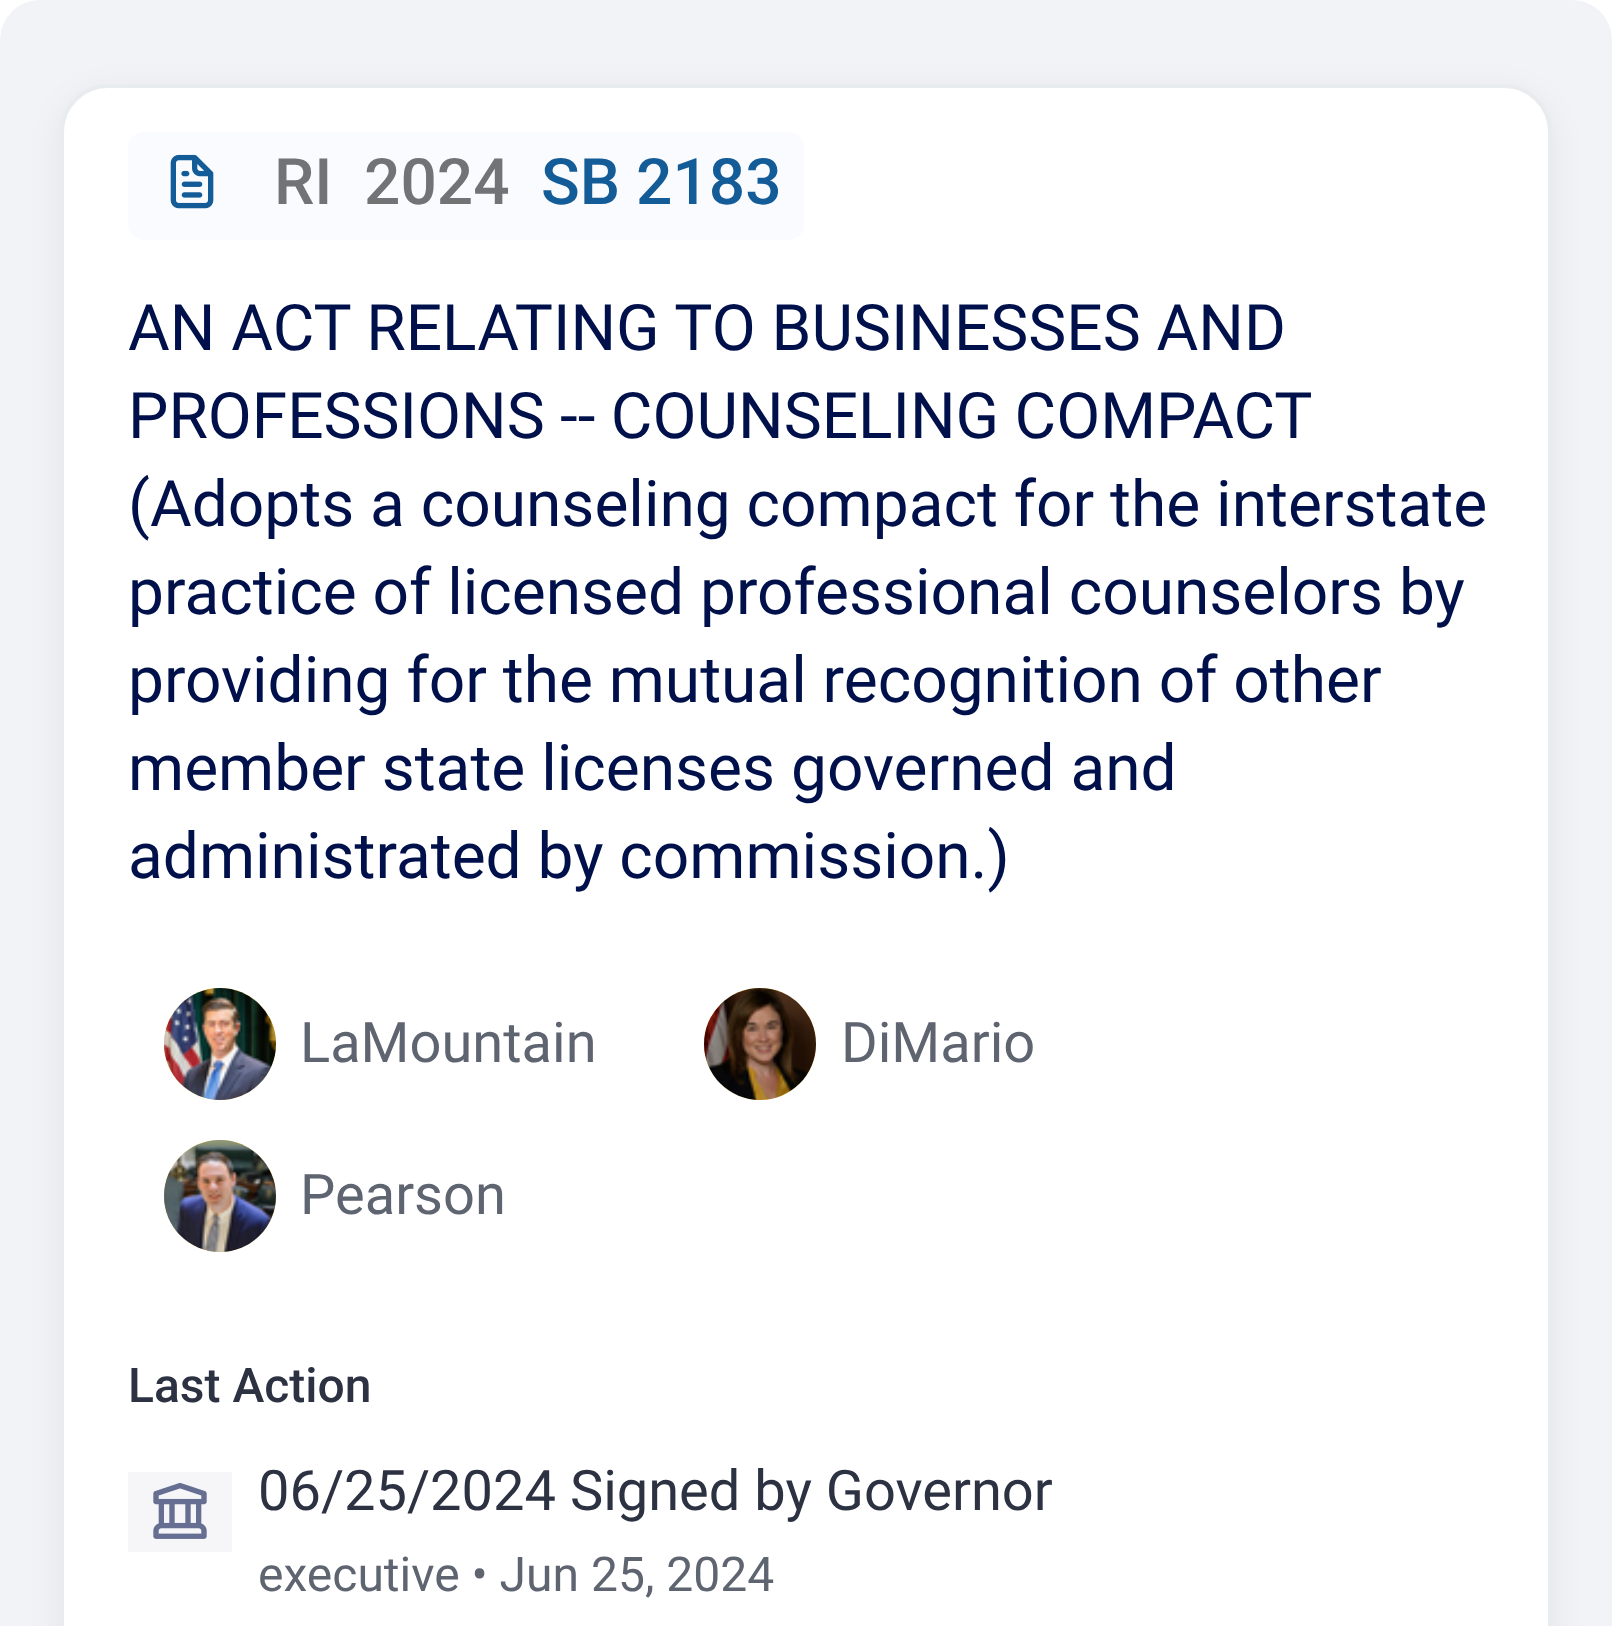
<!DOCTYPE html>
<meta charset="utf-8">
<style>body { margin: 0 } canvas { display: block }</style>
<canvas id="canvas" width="1612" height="1626"></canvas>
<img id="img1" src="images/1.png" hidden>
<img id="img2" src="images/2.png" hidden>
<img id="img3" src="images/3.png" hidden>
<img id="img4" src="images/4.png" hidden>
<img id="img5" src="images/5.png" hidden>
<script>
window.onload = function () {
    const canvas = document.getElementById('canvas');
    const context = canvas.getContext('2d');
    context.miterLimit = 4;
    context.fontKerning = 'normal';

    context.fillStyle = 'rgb(255, 255, 255)';
    context.fillRect(0, 0, 1612, 1626);
    context.fillStyle = 'rgb(242, 243, 246)';
    context.beginPath();
    context.roundRect(0, 0, 1612, 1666, 40);
    context.fill();
    context.fillStyle = 'rgba(0, 0, 0, 0.06)';
    context.filter = 'blur(16px)';
    context.beginPath();
    context.roundRect(60, 92, 1492, 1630, 48);
    context.fill();
    context.filter = 'none';
    context.fillStyle = 'rgb(255, 255, 255)';
    context.beginPath();
    context.roundRect(62, 86, 1488, 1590, 46);
    context.fill();
    context.strokeStyle = 'rgb(233, 236, 239)';
    context.lineWidth = 4;
    context.stroke();
    context.fillStyle = 'rgb(250, 251, 255)';
    context.beginPath();
    context.roundRect(128, 132, 676, 108, 16);
    context.fill();
    context.drawImage(document.getElementById('img1'), 170, 154, 44, 55);
    context.fillStyle = 'rgb(255, 218, 113)';
    context.beginPath();
    context.arc(220, 1044, 58, 0, 2 * Math.PI);
    context.fill();
    context.strokeStyle = 'rgb(255, 255, 255)';
    context.stroke();
    context.drawImage(document.getElementById('img2'), 164, 988, 112, 112);
    context.beginPath();
    context.arc(760, 1044, 58, 0, 2 * Math.PI);
    context.fill();
    context.stroke();
    context.drawImage(document.getElementById('img3'), 704, 988, 112, 112);
    context.beginPath();
    context.arc(220, 1196, 58, 0, 2 * Math.PI);
    context.fill();
    context.stroke();
    context.drawImage(document.getElementById('img4'), 164, 1140, 112, 112);
    context.fillStyle = 'rgb(246, 246, 248)';
    context.fillRect(128, 1472, 104, 80);
    context.drawImage(document.getElementById('img5'), 153, 1483, 54, 56);
    context.font = '500 64px Roboto';
    context.fillStyle = 'rgb(114, 115, 117)';
    context.fillText('RI', 274, 204);
    context.fillText('2024', 364, 204);
    context.fillStyle = 'rgb(20, 92, 151)';
    context.fillText('SB 2183', 541, 204);
    context.font = '64px Roboto';
    context.fillStyle = 'rgb(0, 16, 75)';
    context.fillText('AN ACT RELATING TO BUSINESSES AND', 128, 350);
    context.wordSpacing = '-0.5px';
    context.fillText('PROFESSIONS -- COUNSELING COMPACT', 128, 438);
    context.wordSpacing = '0px';
    context.fillText('(Adopts a counseling compact for the interstate', 128, 526);
    context.fillText('practice of licensed professional counselors by', 128, 614);
    context.fillText('providing for the mutual recognition of other', 128, 702);
    context.fillText('member state licenses governed and', 128, 790);
    context.fillText('administrated by commission.)', 128, 878);
    context.font = '56px Roboto';
    context.fillStyle = 'rgb(95, 100, 113)';
    context.fillText('LaMountain', 300, 1062);
    context.fillText('DiMario', 841, 1062);
    context.fillText('Pearson', 300, 1214);
    context.font = '500 48px Roboto';
    context.fillStyle = 'rgb(44, 50, 66)';
    context.fillText('Last Action', 128, 1402);
    context.font = '56px Roboto';
    context.fillText('06/25/2024 Signed by Governor', 258, 1510);
    context.font = '48px Roboto';
    context.fillStyle = 'rgb(95, 100, 113)';
    context.fillText('executive • Jun 25, 2024', 258, 1591);
};
</script>
